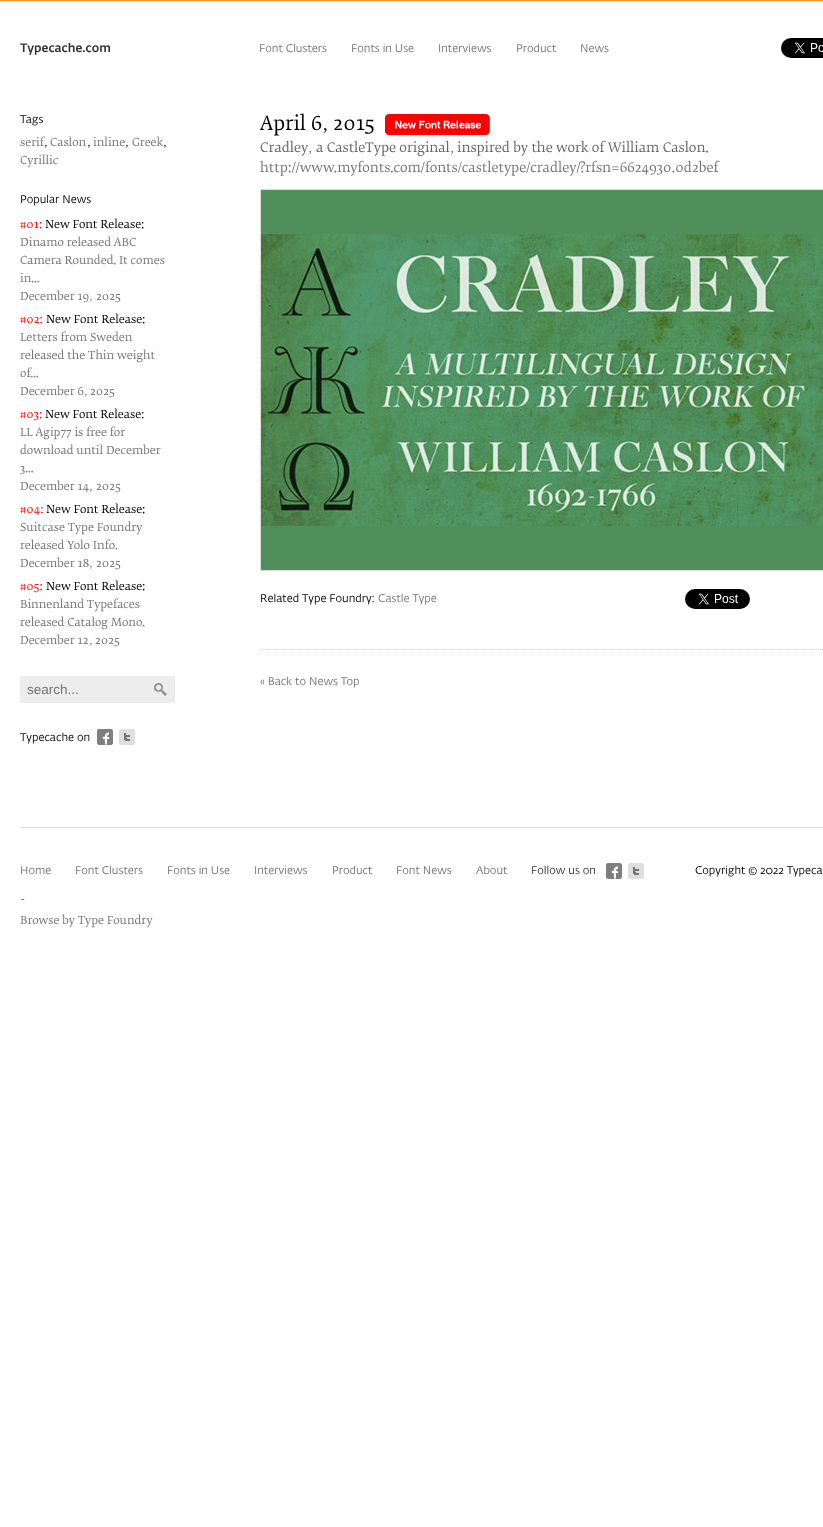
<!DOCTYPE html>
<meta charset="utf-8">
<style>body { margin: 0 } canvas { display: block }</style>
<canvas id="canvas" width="823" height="1527"></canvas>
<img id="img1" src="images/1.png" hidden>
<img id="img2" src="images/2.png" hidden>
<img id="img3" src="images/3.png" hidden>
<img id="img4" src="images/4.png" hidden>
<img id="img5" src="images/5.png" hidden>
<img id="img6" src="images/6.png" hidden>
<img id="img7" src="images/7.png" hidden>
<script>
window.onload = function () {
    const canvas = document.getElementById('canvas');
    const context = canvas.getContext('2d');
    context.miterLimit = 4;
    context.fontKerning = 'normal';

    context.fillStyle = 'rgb(255, 255, 255)';
    context.fillRect(0, 0, 823, 1527);
    context.fillStyle = 'rgb(255, 147, 39)';
    context.fillRect(0, 0, 823, 1);
    context.drawImage(document.getElementById('img1'), 781, 38, 42, 20);
    context.fillStyle = 'rgb(237, 237, 237)';
    context.fillRect(20, 676, 155, 27);
    context.drawImage(document.getElementById('img2'), 154, 683, 13, 13);
    context.drawImage(document.getElementById('img3'), 97, 729, 16, 16);
    context.drawImage(document.getElementById('img4'), 119, 729, 16, 16);
    context.drawImage(document.getElementById('img5'), 385, 114, 105, 21);
    context.strokeStyle = 'rgb(222, 222, 222)';
    context.strokeRect(260.5, 189.5, 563, 381);
    context.drawImage(document.getElementById('img6'), 261, 190, 562, 380);
    context.drawImage(document.getElementById('img7'), 685, 589, 65, 20);
    context.beginPath();
    context.moveTo(260, 649.5);
    context.lineTo(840, 649.5);
    context.strokeStyle = 'rgb(214, 214, 214)';
    context.setLineDash([1, 1]);
    context.stroke();
    context.fillStyle = 'rgb(222, 222, 222)';
    context.fillRect(20, 827, 803, 1);
    context.drawImage(document.getElementById('img3'), 606, 863, 16, 16);
    context.drawImage(document.getElementById('img4'), 628, 863, 16, 16);
    context.font = '500 12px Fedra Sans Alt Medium';
    context.fillStyle = 'rgb(51, 51, 51)';
    context.fillText('Typecache.com', 20, 52);
    context.font = '11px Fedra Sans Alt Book';
    context.fillStyle = 'rgb(117, 117, 117)';
    context.fillText('Font Clusters', 259, 52);
    context.fillText('Fonts in Use', 351, 52);
    context.fillText('Interviews', 438, 52);
    context.fillText('Product', 516, 52);
    context.fillText('News', 580, 52);
    context.fillStyle = 'rgb(0, 0, 0)';
    context.fillText('Tags', 20, 123);
    context.font = '300 11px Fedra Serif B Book';
    context.fillStyle = 'rgb(117, 117, 117)';
    context.fillText('serif', 20, 146);
    context.font = '11px Liberation Serif';
    context.fillStyle = 'rgb(0, 0, 0)';
    context.fillText('‚', 44, 146);
    context.font = '300 11px Fedra Serif B Book';
    context.fillStyle = 'rgb(117, 117, 117)';
    context.fillText('Caslon', 50, 146);
    context.font = '11px Liberation Serif';
    context.fillStyle = 'rgb(0, 0, 0)';
    context.fillText('‚', 87, 146);
    context.font = '300 11px Fedra Serif B Book';
    context.fillStyle = 'rgb(117, 117, 117)';
    context.fillText('inline', 93, 146);
    context.font = '11px Liberation Serif';
    context.fillStyle = 'rgb(0, 0, 0)';
    context.fillText('‚', 125, 146);
    context.font = '300 11px Fedra Serif B Book';
    context.fillStyle = 'rgb(117, 117, 117)';
    context.fillText('Greek', 132, 146);
    context.font = '11px Liberation Serif';
    context.fillStyle = 'rgb(0, 0, 0)';
    context.fillText('‚', 163, 146);
    context.font = '300 11px Fedra Serif B Book';
    context.fillStyle = 'rgb(117, 117, 117)';
    context.fillText('Cyrillic', 20, 164);
    context.font = '11px Fedra Sans Alt Book';
    context.fillStyle = 'rgb(0, 0, 0)';
    context.fillText('Popular News', 20, 203);
    context.font = '300 11px Fedra Serif B Book';
    context.fillStyle = 'rgb(255, 0, 0)';
    context.fillText('#01:', 20, 228);
    context.fillStyle = 'rgb(0, 0, 0)';
    context.fillText('New Font Release:', 45, 228);
    context.fillStyle = 'rgb(117, 117, 117)';
    context.fillText('Dinamo released ABC', 20, 246);
    context.fillText('Camera Rounded. It comes', 20, 264);
    context.fillText('in...', 20, 282);
    context.fillText('December 19', 20, 300);
    context.font = '11px Liberation Serif';
    context.fillText('‚', 89, 300);
    context.font = '300 11px Fedra Serif B Book';
    context.fillText('2025', 96, 300);
    context.fillStyle = 'rgb(255, 0, 0)';
    context.fillText('#02:', 20, 323);
    context.fillStyle = 'rgb(0, 0, 0)';
    context.fillText('New Font Release:', 46, 323);
    context.fillStyle = 'rgb(117, 117, 117)';
    context.fillText('Letters from Sweden', 20, 341);
    context.fillText('released the Thin weight', 20, 359);
    context.fillText('of...', 20, 377);
    context.fillText('December 6', 20, 395);
    context.font = '11px Liberation Serif';
    context.fillText('‚', 84, 395);
    context.font = '300 11px Fedra Serif B Book';
    context.fillText('2025', 90, 395);
    context.fillStyle = 'rgb(255, 0, 0)';
    context.fillText('#03:', 20, 418);
    context.fillStyle = 'rgb(0, 0, 0)';
    context.fillText('New Font Release:', 45, 418);
    context.fillStyle = 'rgb(117, 117, 117)';
    context.fillText('LL Agip77 is free for', 20, 436);
    context.fillText('download until December', 20, 454);
    context.fillText('3...', 20, 472);
    context.fillText('December 14', 20, 490);
    context.font = '11px Liberation Serif';
    context.fillText('‚', 89, 490);
    context.font = '300 11px Fedra Serif B Book';
    context.fillText('2025', 96, 490);
    context.fillStyle = 'rgb(255, 0, 0)';
    context.fillText('#04:', 20, 513);
    context.fillStyle = 'rgb(0, 0, 0)';
    context.fillText('New Font Release:', 46, 513);
    context.fillStyle = 'rgb(117, 117, 117)';
    context.fillText('Suitcase Type Foundry', 20, 531);
    context.fillText('released Yolo Info.', 20, 549);
    context.fillText('December 18', 20, 567);
    context.font = '11px Liberation Serif';
    context.fillText('‚', 89, 567);
    context.font = '300 11px Fedra Serif B Book';
    context.fillText('2025', 96, 567);
    context.fillStyle = 'rgb(255, 0, 0)';
    context.fillText('#05:', 20, 590);
    context.fillStyle = 'rgb(0, 0, 0)';
    context.fillText('New Font Release:', 46, 590);
    context.fillStyle = 'rgb(117, 117, 117)';
    context.fillText('Binnenland Typefaces', 20, 608);
    context.fillText('released Catalog Mono.', 20, 626);
    context.fillText('December 12', 20, 644);
    context.font = '11px Liberation Serif';
    context.fillText('‚', 89, 644);
    context.font = '300 11px Fedra Serif B Book';
    context.fillText('2025', 95, 644);
    context.font = '13.5px Liberation Sans';
    context.fillText('search...', 27, 694);
    context.font = '11px Fedra Sans Alt Book';
    context.fillStyle = 'rgb(0, 0, 0)';
    context.fillText('Typecache on', 20, 741);
    context.font = '300 19px Fedra Serif B Book';
    context.fillText('April 6', 260, 130);
    context.font = '19px Liberation Serif';
    context.fillText('‚', 322, 130);
    context.font = '300 19px Fedra Serif B Book';
    context.fillText('2015', 333, 130);
    context.font = '300 13px Fedra Serif B Book';
    context.fillStyle = 'rgb(102, 102, 102)';
    context.fillText('Cradley', 260, 152);
    context.font = '13px Liberation Serif';
    context.fillText('‚', 308, 152);
    context.font = '300 13px Fedra Serif B Book';
    context.fillText('a CastleType original', 316, 152);
    context.font = '13px Liberation Serif';
    context.fillText('‚', 450, 152);
    context.font = '300 13px Fedra Serif B Book';
    context.fillText('inspired by the work of William Caslon.', 457, 152);
    context.fillStyle = 'rgb(117, 117, 117)';
    context.fillText('http://www.myfonts.com/fonts/castletype/cradley/?rfsn=6624930.0d2bef', 260, 172);
    context.font = '11px Fedra Sans Alt Book';
    context.fillStyle = 'rgb(0, 0, 0)';
    context.fillText('Related Type Foundry:', 260, 602);
    context.fillStyle = 'rgb(117, 117, 117)';
    context.fillText('Castle Type', 378, 602);
    context.fillText('« Back to News Top', 260, 685);
    context.fillText('Home', 20, 874);
    context.fillText('Font Clusters', 75, 874);
    context.fillText('Fonts in Use', 167, 874);
    context.fillText('Interviews', 254, 874);
    context.fillText('Product', 332, 874);
    context.fillText('Font News', 396, 874);
    context.fillText('About', 476, 874);
    context.fillStyle = 'rgb(51, 51, 51)';
    context.fillText('Follow us on', 531, 874);
    context.fillStyle = 'rgb(0, 0, 0)';
    context.fillText('Copyright © 2022 Typeca', 695, 874);
    context.font = '300 11px Fedra Serif B Book';
    context.fillStyle = 'rgb(51, 51, 51)';
    context.fillText('-', 20, 903);
    context.fillStyle = 'rgb(117, 117, 117)';
    context.fillText('Browse by Type Foundry', 20, 924);
};
</script>
